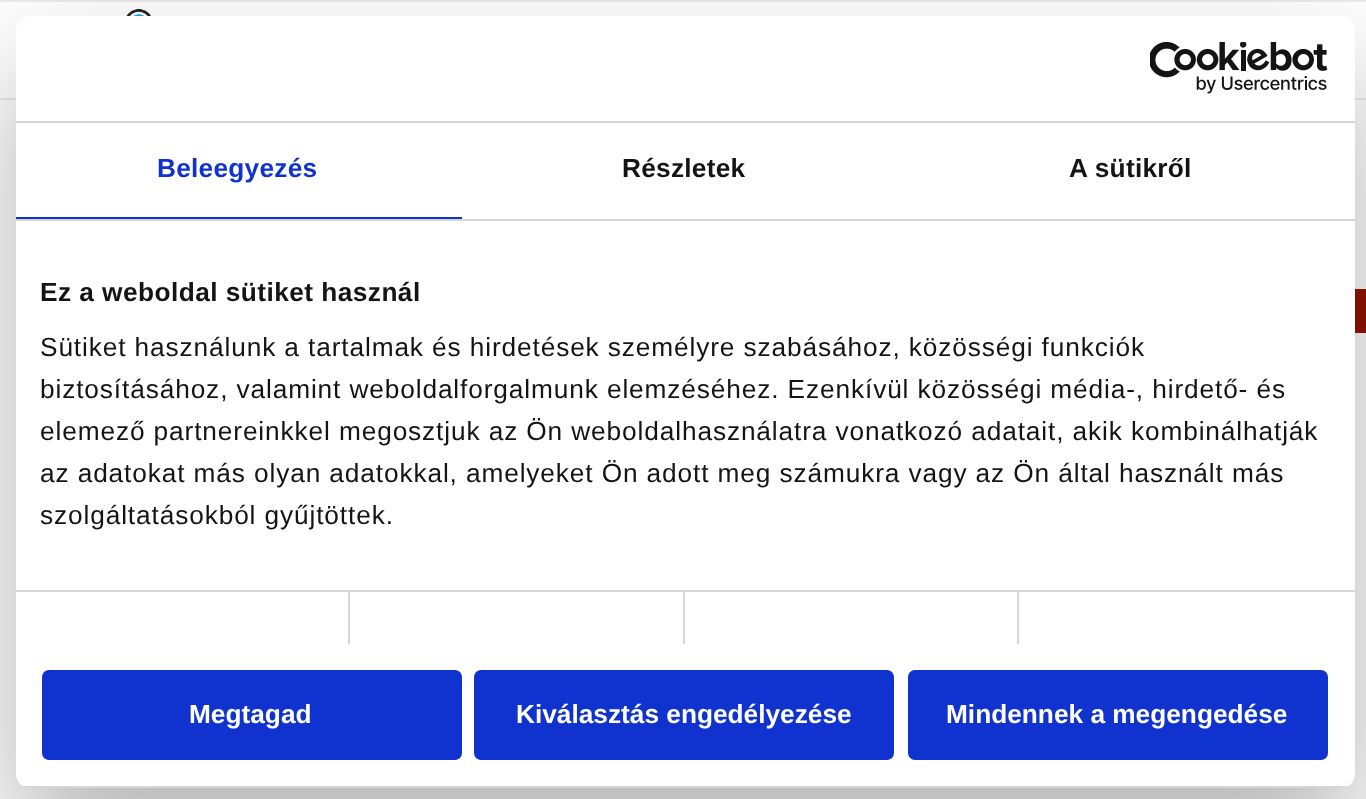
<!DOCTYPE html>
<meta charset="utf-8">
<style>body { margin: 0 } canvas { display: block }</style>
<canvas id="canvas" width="1366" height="799"></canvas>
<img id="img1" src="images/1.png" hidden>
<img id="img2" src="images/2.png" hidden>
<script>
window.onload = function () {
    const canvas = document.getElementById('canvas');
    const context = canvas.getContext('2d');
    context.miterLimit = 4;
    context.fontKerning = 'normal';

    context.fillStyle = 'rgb(255, 255, 255)';
    context.fillRect(0, 0, 1366, 799);
    context.fillStyle = 'rgb(235, 235, 235)';
    context.fillRect(0, 0, 1366, 2);
    context.fillRect(0, 98, 1366, 2);
    context.drawImage(document.getElementById('img1'), 126, 9, 26, 7);
    context.fillStyle = 'rgb(149, 19, 5)';
    context.fillRect(1355, 289, 11, 44);
    context.fillStyle = 'rgba(0, 0, 0, 0.3)';
    context.filter = 'blur(59.5px)';
    context.beginPath();
    context.roundRect(16, 72, 1339, 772, 14);
    context.fill();
    context.filter = 'none';
    context.fillStyle = 'rgb(255, 255, 255)';
    context.beginPath();
    context.roundRect(16, 16, 1339, 772, 14);
    context.fill();
    context.fillStyle = 'rgb(214, 214, 214)';
    context.fillRect(16, 121, 1339, 2);
    context.drawImage(document.getElementById('img2'), 1150, 42, 178, 52);
    context.fillRect(16, 219, 1339, 2);
    context.fillStyle = 'rgb(16, 50, 207)';
    context.fillRect(16, 217, 446, 2);
    context.fillStyle = 'rgb(214, 214, 214)';
    context.fillRect(16, 590, 1339, 2);
    context.fillRect(348, 592, 2, 52);
    context.fillRect(683, 592, 2, 52);
    context.fillRect(1017, 592, 2, 52);
    context.save();
    context.beginPath();
    context.roundRect(16, 16, 1339, 772, 14);
    context.clip();
    context.fillRect(16, 786, 1339, 2);
    context.restore();
    context.fillStyle = 'rgb(16, 50, 207)';
    context.beginPath();
    context.roundRect(44, 672, 416, 86, 5);
    context.fill();
    context.strokeStyle = 'rgb(16, 50, 207)';
    context.lineWidth = 4;
    context.stroke();
    context.beginPath();
    context.roundRect(476, 672, 416, 86, 5);
    context.fill();
    context.stroke();
    context.beginPath();
    context.roundRect(910, 672, 416, 86, 5);
    context.fill();
    context.stroke();
    context.letterSpacing = '0.25px';
    context.font = 'bold 26.25px Liberation Sans';
    context.fillText('Beleegyezés', 157, 177);
    context.fillStyle = 'rgb(20, 20, 20)';
    context.fillText('Részletek', 622, 177);
    context.fillText('A sütikről', 1069, 177);
    context.letterSpacing = '0.45px';
    context.fillText('Ez a weboldal sütiket használ', 40, 301);
    context.letterSpacing = '0.88px';
    context.font = '26.25px Liberation Sans';
    context.fillText('Sütiket használunk a tartalmak és hirdetések személyre szabásához, közösségi funkciók', 40, 356);
    context.fillText('biztosításához, valamint weboldalforgalmunk elemzéséhez. Ezenkívül közösségi média-, hirdető- és', 40, 398);
    context.fillText('elemező partnereinkkel megosztjuk az Ön weboldalhasználatra vonatkozó adatait, akik kombinálhatják', 40, 440);
    context.fillText('az adatokat más olyan adatokkal, amelyeket Ön adott meg számukra vagy az Ön által használt más', 40, 482);
    context.fillText('szolgáltatásokból gyűjtöttek.', 40, 524);
    context.letterSpacing = '0px';
    context.font = 'bold 26.25px Liberation Sans';
    context.fillStyle = 'rgb(255, 255, 255)';
    context.fillText('Megtagad', 189, 723);
    context.fillText('Kiválasztás engedélyezése', 516, 723);
    context.fillText('Mindennek a megengedése', 946, 723);
};
</script>
